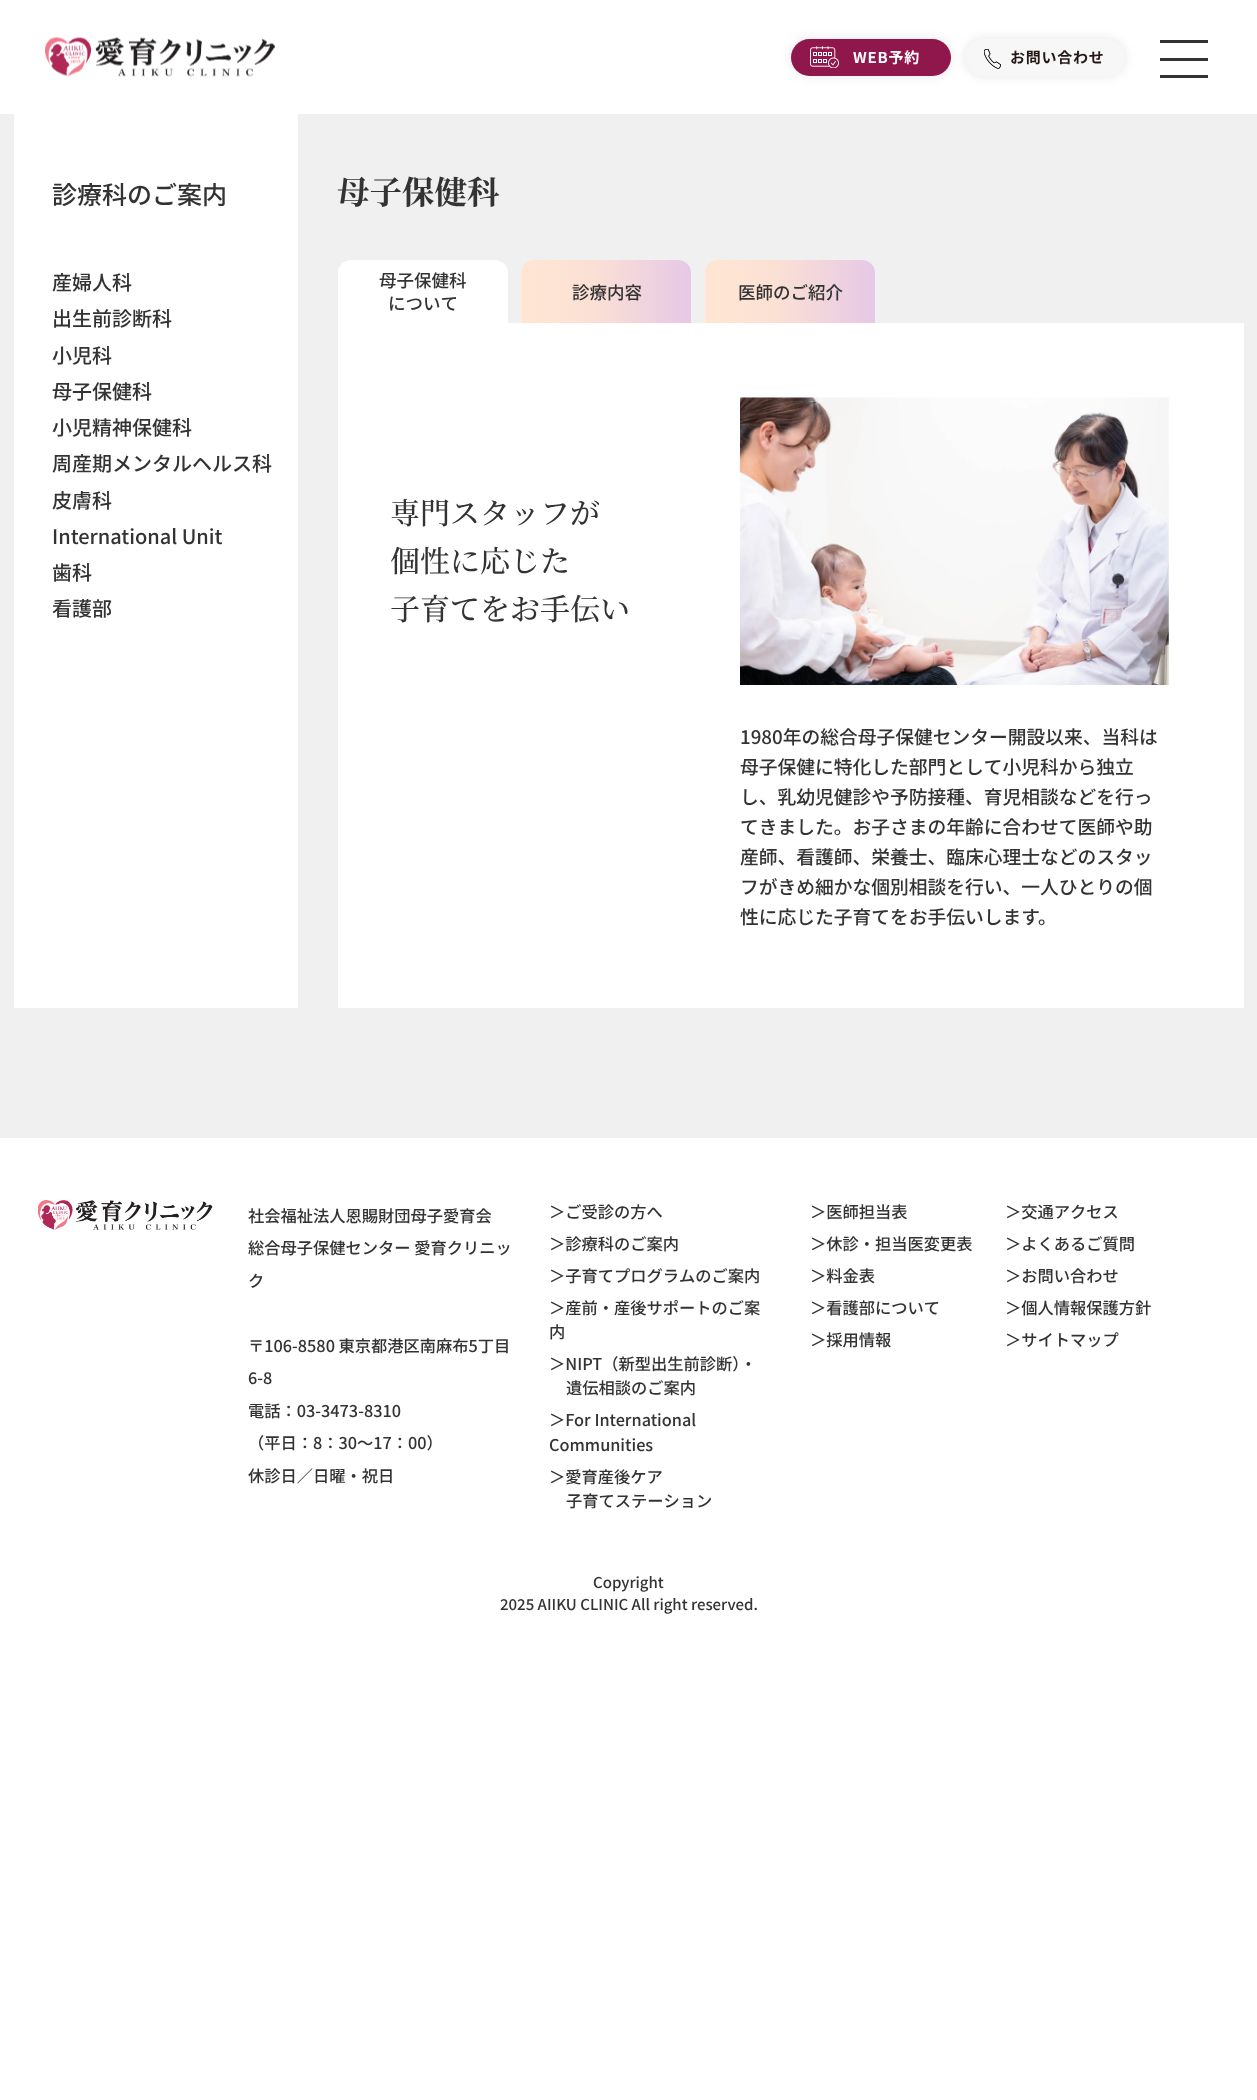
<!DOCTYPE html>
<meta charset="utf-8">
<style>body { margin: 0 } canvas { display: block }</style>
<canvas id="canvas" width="1257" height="2100"></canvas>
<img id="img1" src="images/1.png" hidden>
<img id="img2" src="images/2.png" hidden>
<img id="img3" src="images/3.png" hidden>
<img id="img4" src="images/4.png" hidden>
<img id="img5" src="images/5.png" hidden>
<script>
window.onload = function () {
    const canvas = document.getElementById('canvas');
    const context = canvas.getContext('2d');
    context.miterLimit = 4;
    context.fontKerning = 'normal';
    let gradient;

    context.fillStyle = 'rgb(255, 255, 255)';
    context.fillRect(0, 0, 1257, 2100);
    context.drawImage(document.getElementById('img1'), 45, 37, 230, 40);
    context.fillStyle = 'rgba(0, 0, 0, 0.1)';
    context.filter = 'blur(5.5px)';
    context.beginPath();
    context.roundRect(791, 39, 160, 37, 18.5);
    context.fill();
    context.filter = 'none';
    context.fillStyle = 'rgb(143, 23, 75)';
    context.beginPath();
    context.roundRect(791, 39, 160, 37, 18.5);
    context.fill();
    context.drawImage(document.getElementById('img2'), 810, 46, 29, 22);
    context.fillStyle = 'rgba(0, 0, 0, 0.1)';
    context.filter = 'blur(5.5px)';
    context.beginPath();
    context.roundRect(965, 39, 160, 37, 18.5);
    context.fill();
    context.filter = 'none';
    context.fillStyle = 'rgb(247, 247, 247)';
    context.beginPath();
    context.roundRect(965, 39, 160, 37, 18.5);
    context.fill();
    context.drawImage(document.getElementById('img3'), 984, 49, 17, 20);
    context.fillStyle = 'rgb(51, 51, 51)';
    context.fillRect(1160, 40, 48, 3);
    context.fillRect(1160, 58, 48, 3);
    context.fillRect(1160, 75, 48, 3);
    context.fillStyle = 'rgb(240, 240, 240)';
    context.fillRect(0, 114, 1257, 1024);
    context.fillStyle = 'rgb(255, 255, 255)';
    context.fillRect(14, 114, 284, 894);
    context.beginPath();
    context.roundRect(338, 260, 170, 63, [13, 13, 0, 0]);
    context.fill();
    gradient = context.createLinearGradient(521, 291, 691, 291);
    gradient.addColorStop(0, 'rgb(255, 230, 210)');
    gradient.addColorStop(0.4, 'rgb(251, 225, 212)');
    gradient.addColorStop(0.7, 'rgb(241, 213, 221)');
    gradient.addColorStop(1, 'rgb(230, 200, 230)');
    context.fillStyle = gradient;
    context.beginPath();
    context.roundRect(521, 260, 170, 63, [13, 13, 0, 0]);
    context.fill();
    gradient = context.createLinearGradient(705, 291, 875, 291);
    gradient.addColorStop(0, 'rgb(255, 230, 210)');
    gradient.addColorStop(0.4, 'rgb(251, 225, 212)');
    gradient.addColorStop(0.7, 'rgb(241, 213, 221)');
    gradient.addColorStop(1, 'rgb(230, 200, 230)');
    context.fillStyle = gradient;
    context.beginPath();
    context.roundRect(705, 260, 170, 63, [13, 13, 0, 0]);
    context.fill();
    context.fillStyle = 'rgb(255, 255, 255)';
    context.fillRect(338, 323, 906, 685);
    context.drawImage(document.getElementById('img4'), 740, 397, 429, 288);
    context.drawImage(document.getElementById('img5'), 38, 1200, 175, 30);
    context.letterSpacing = '0.75px';
    context.font = 'bold 15px Noto Sans JP';
    context.fillText('WEB予約', 853, 63);
    context.fillStyle = 'rgb(35, 24, 21)';
    context.fillText('お問い合わせ', 1010, 63);
    context.letterSpacing = '0px';
    context.font = '500 25px Noto Sans JP';
    context.fillStyle = 'rgb(51, 51, 51)';
    context.fillText('診療科のご案内', 52, 204);
    context.font = '500 20px Noto Sans JP';
    context.fillText('産婦人科', 52, 290);
    context.fillText('出生前診断科', 52, 326);
    context.fillText('小児科', 52, 363);
    context.fillText('母子保健科', 52, 399);
    context.fillText('小児精神保健科', 52, 435);
    context.fillText('周産期メンタルヘルス科', 52, 471);
    context.fillText('皮膚科', 52, 508);
    context.fillText('International Unit', 52, 544);
    context.fillText('歯科', 52, 580);
    context.fillText('看護部', 52, 616);
    context.font = 'bold 32.5px Noto Serif JP';
    context.fillText('母子保健科', 337, 204);
    context.font = '500 17.5px Noto Sans JP';
    context.fillText('母子保健科', 379, 287);
    context.fillText('について', 388, 310);
    context.fillText('診療内容', 572, 299);
    context.fillText('医師のご紹介', 738, 299);
    context.font = '500 30px Noto Serif JP';
    context.fillText('専門スタッフが', 390, 524);
    context.fillText('個性に応じた', 390, 572);
    context.fillText('子育てをお手伝い', 390, 620);
    context.font = '500 18.75px Noto Sans JP';
    context.fillText('1980年の総合母子保健センター開設以来、当科は', 740, 744);
    context.fillText('母子保健に特化した部門として小児科から独立', 740, 774);
    context.fillText('し、乳幼児健診や予防接種、育児相談などを行っ', 740, 804);
    context.fillText('てきました。お子さまの年齢に合わせて医師や助', 740, 834);
    context.fillText('産師、看護師、栄養士、臨床心理士などのスタッ', 740, 864);
    context.fillText('フがきめ細かな個別相談を行い、一人ひとりの個', 740, 894);
    context.fillText('性に応じた子育てをお手伝いします。', 740, 924);
    context.font = '500 16.25px Noto Sans JP';
    context.fillText('社会福祉法人恩賜財団母子愛育会', 248, 1222);
    context.fillText('総合母子保健センター 愛育クリニッ', 248, 1254);
    context.fillText('ク', 248, 1287);
    context.fillText('〒106-8580 東京都港区南麻布5丁目', 248, 1352);
    context.fillText('6-8', 248, 1384);
    context.fillText('電話：03-3473-8310', 248, 1417);
    context.fillText('（平日：8：30～17：00）', 248, 1449);
    context.fillText('休診日／日曜・祝日', 248, 1482);
    context.fillText('＞ご受診の方へ', 549, 1218);
    context.fillText('＞診療科のご案内', 549, 1250);
    context.fillText('＞子育てプログラムのご案内', 549, 1282);
    context.fillText('＞産前・産後サポートのご案', 549, 1314);
    context.fillText('内', 549, 1338);
    context.fillText('＞NIPT（新型出生前診断）・', 549, 1370);
    context.fillText('遺伝相談のご案内', 566, 1394);
    context.fillText('＞For International', 549, 1426);
    context.fillText('Communities', 549, 1451);
    context.fillText('＞愛育産後ケア', 549, 1483);
    context.fillText('子育てステーション', 566, 1507);
    context.fillText('＞医師担当表', 810, 1218);
    context.fillText('＞休診・担当医変更表', 810, 1250);
    context.fillText('＞料金表', 810, 1282);
    context.fillText('＞看護部について', 810, 1314);
    context.fillText('＞採用情報', 810, 1346);
    context.fillText('＞交通アクセス', 1005, 1218);
    context.fillText('＞よくあるご質問', 1005, 1250);
    context.fillText('＞お問い合わせ', 1005, 1282);
    context.fillText('＞個人情報保護方針', 1005, 1314);
    context.fillText('＞サイトマップ', 1005, 1346);
    context.font = '500 15px Noto Sans JP';
    context.fillText('Copyright', 593, 1588);
    context.fillText('2025 AIIKU CLINIC All right reserved.', 500, 1610);
};
</script>
